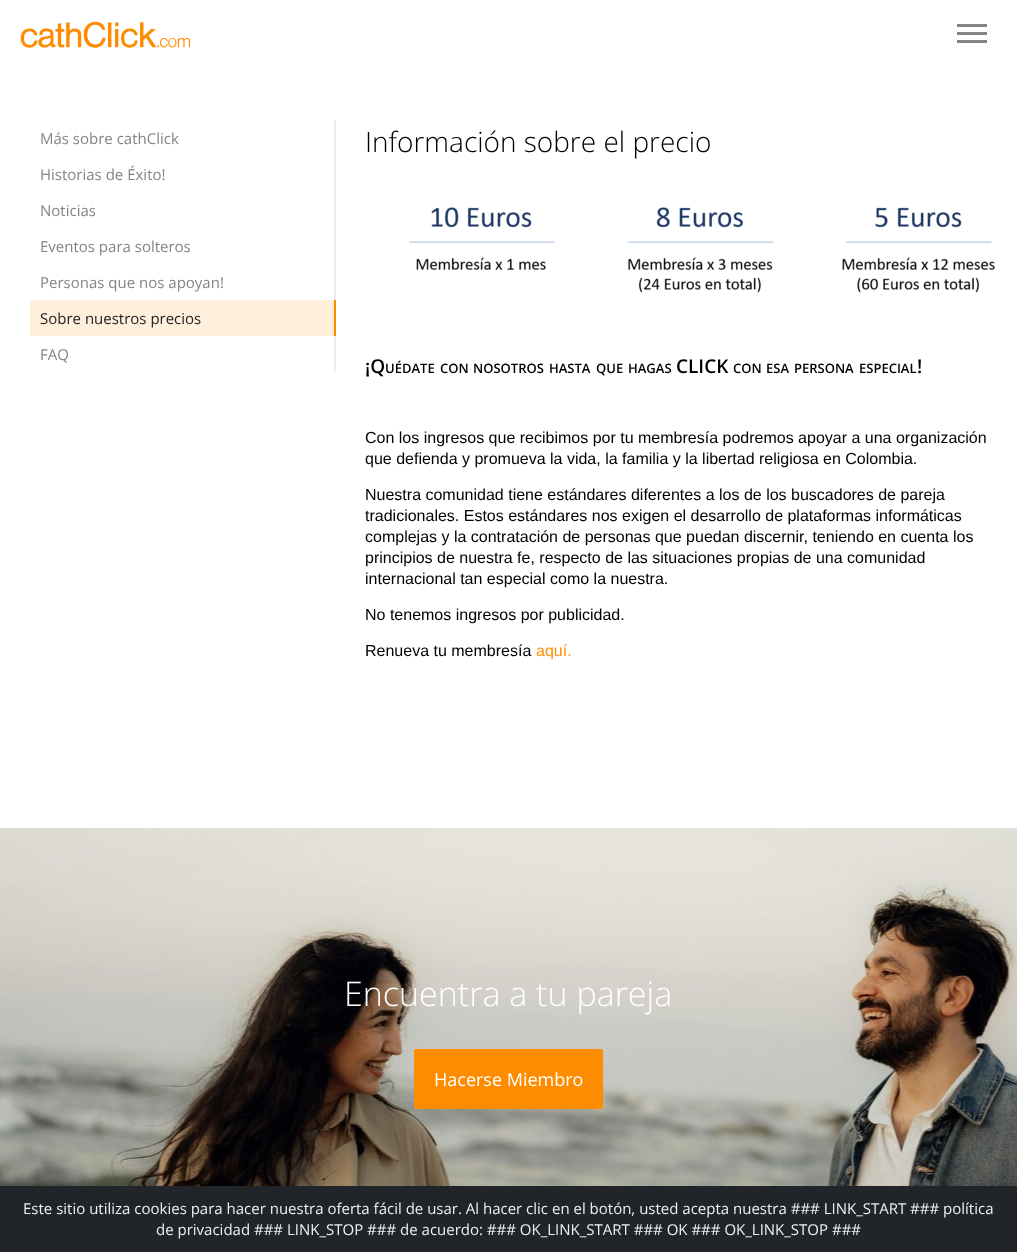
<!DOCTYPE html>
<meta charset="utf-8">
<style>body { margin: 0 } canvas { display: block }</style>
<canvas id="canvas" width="1017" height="1252"></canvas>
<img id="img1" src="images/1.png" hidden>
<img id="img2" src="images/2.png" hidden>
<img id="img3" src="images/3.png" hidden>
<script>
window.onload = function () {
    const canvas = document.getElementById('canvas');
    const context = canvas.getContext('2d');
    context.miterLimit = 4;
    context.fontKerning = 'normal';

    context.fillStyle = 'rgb(255, 255, 255)';
    context.fillRect(0, 0, 1017, 1252);
    context.drawImage(document.getElementById('img1'), 20, 21, 171, 27);
    context.fillStyle = 'rgb(132, 132, 132)';
    context.fillRect(957, 24, 30, 3);
    context.fillRect(957, 32, 30, 3);
    context.fillRect(957, 40, 30, 3);
    context.fillStyle = 'rgb(237, 237, 237)';
    context.fillRect(334, 120, 2, 180);
    context.fillStyle = 'rgb(255, 239, 219)';
    context.fillRect(30, 300, 304, 36);
    context.fillStyle = 'rgb(255, 140, 0)';
    context.fillRect(334, 300, 2, 36);
    context.fillStyle = 'rgb(237, 237, 237)';
    context.fillRect(334, 336, 2, 36);
    context.drawImage(document.getElementById('img2'), 409, 207, 586, 86);
    context.drawImage(document.getElementById('img3'), 0, 828, 1017, 358);
    context.fillStyle = 'rgb(255, 140, 0)';
    context.beginPath();
    context.roundRect(414, 1049, 189, 60, 2);
    context.fill();
    context.fillStyle = 'rgb(33, 37, 41)';
    context.fillRect(0, 1186, 1017, 66);
    context.font = '15px Open Sans';
    context.fillStyle = 'rgb(132, 132, 132)';
    context.fillText('Más sobre cathClick', 40, 144);
    context.fillText('Historias de Éxito!', 40, 180);
    context.fillText('Noticias', 40, 216);
    context.fillText('Eventos para solteros', 40, 252);
    context.fillText('Personas que nos apoyan!', 40, 288);
    context.fillStyle = 'rgb(34, 34, 34)';
    context.fillText('Sobre nuestros precios', 40, 324);
    context.fillStyle = 'rgb(132, 132, 132)';
    context.fillText('FAQ', 40, 360);
    context.font = '300 28px Open Sans';
    context.fillStyle = 'rgb(0, 0, 0)';
    context.fillText('Información sobre el precio', 365, 152);
    context.font = '600 19px Open Sans';
    context.fillText('¡Q', 365, 373);
    context.font = '600 13px Open Sans';
    context.fillText('UÉDATE', 385, 373);
    context.fillText('CON', 440, 373);
    context.fillText('NOSOTROS', 473, 373);
    context.fillText('HASTA', 549, 373);
    context.fillText('QUE', 596, 373);
    context.fillText('HAGAS', 628, 373);
    context.font = '600 19px Open Sans';
    context.fillText('CLICK', 676, 373);
    context.font = '600 13px Open Sans';
    context.fillText('CON', 733, 373);
    context.fillText('ESA', 766, 373);
    context.fillText('PERSONA', 794, 373);
    context.fillText('ESPECIAL', 859, 373);
    context.font = '600 19px Open Sans';
    context.fillText('!', 917, 373);
    context.font = '16px Liberation Sans';
    context.fillText('Con los ingresos que recibimos por tu membresía podremos apoyar a una organización', 365, 443);
    context.fillText('que defienda y promueva la vida, la familia y la libertad religiosa en Colombia.', 365, 464);
    context.fillText('Nuestra comunidad tiene estándares diferentes a los de los buscadores de pareja', 365, 500);
    context.fillText('tradicionales. Estos estándares nos exigen el desarrollo de plataformas informáticas', 365, 521);
    context.fillText('complejas y la contratación de personas que puedan discernir, teniendo en cuenta los', 365, 542);
    context.fillText('principios de nuestra fe, respecto de las situaciones propias de una comunidad', 365, 563);
    context.fillText('internacional tan especial como la nuestra.', 365, 584);
    context.fillText('No tenemos ingresos por publicidad.', 365, 620);
    context.fillText('Renueva tu membresía', 365, 656);
    context.fillStyle = 'rgb(255, 140, 0)';
    context.fillText('aquí.', 536, 656);
    context.font = '300 34px Open Sans';
    context.fillStyle = 'rgb(255, 255, 255)';
    context.fillText('Encuentra a tu pareja', 344, 1006);
    context.font = '18px Open Sans';
    context.fillText('Hacerse Miembro', 434, 1086);
    context.font = '15px Open Sans';
    context.fillStyle = 'rgb(236, 240, 241)';
    context.fillText('Este sitio utiliza cookies para hacer nuestra oferta fácil de usar. Al hacer clic en el botón, usted acepta nuestra ### LINK_START ### política', 23, 1214);
    context.fillText('de privacidad ### LINK_STOP ### de acuerdo: ### OK_LINK_START ### OK ### OK_LINK_STOP ###', 156, 1235);
};
</script>
